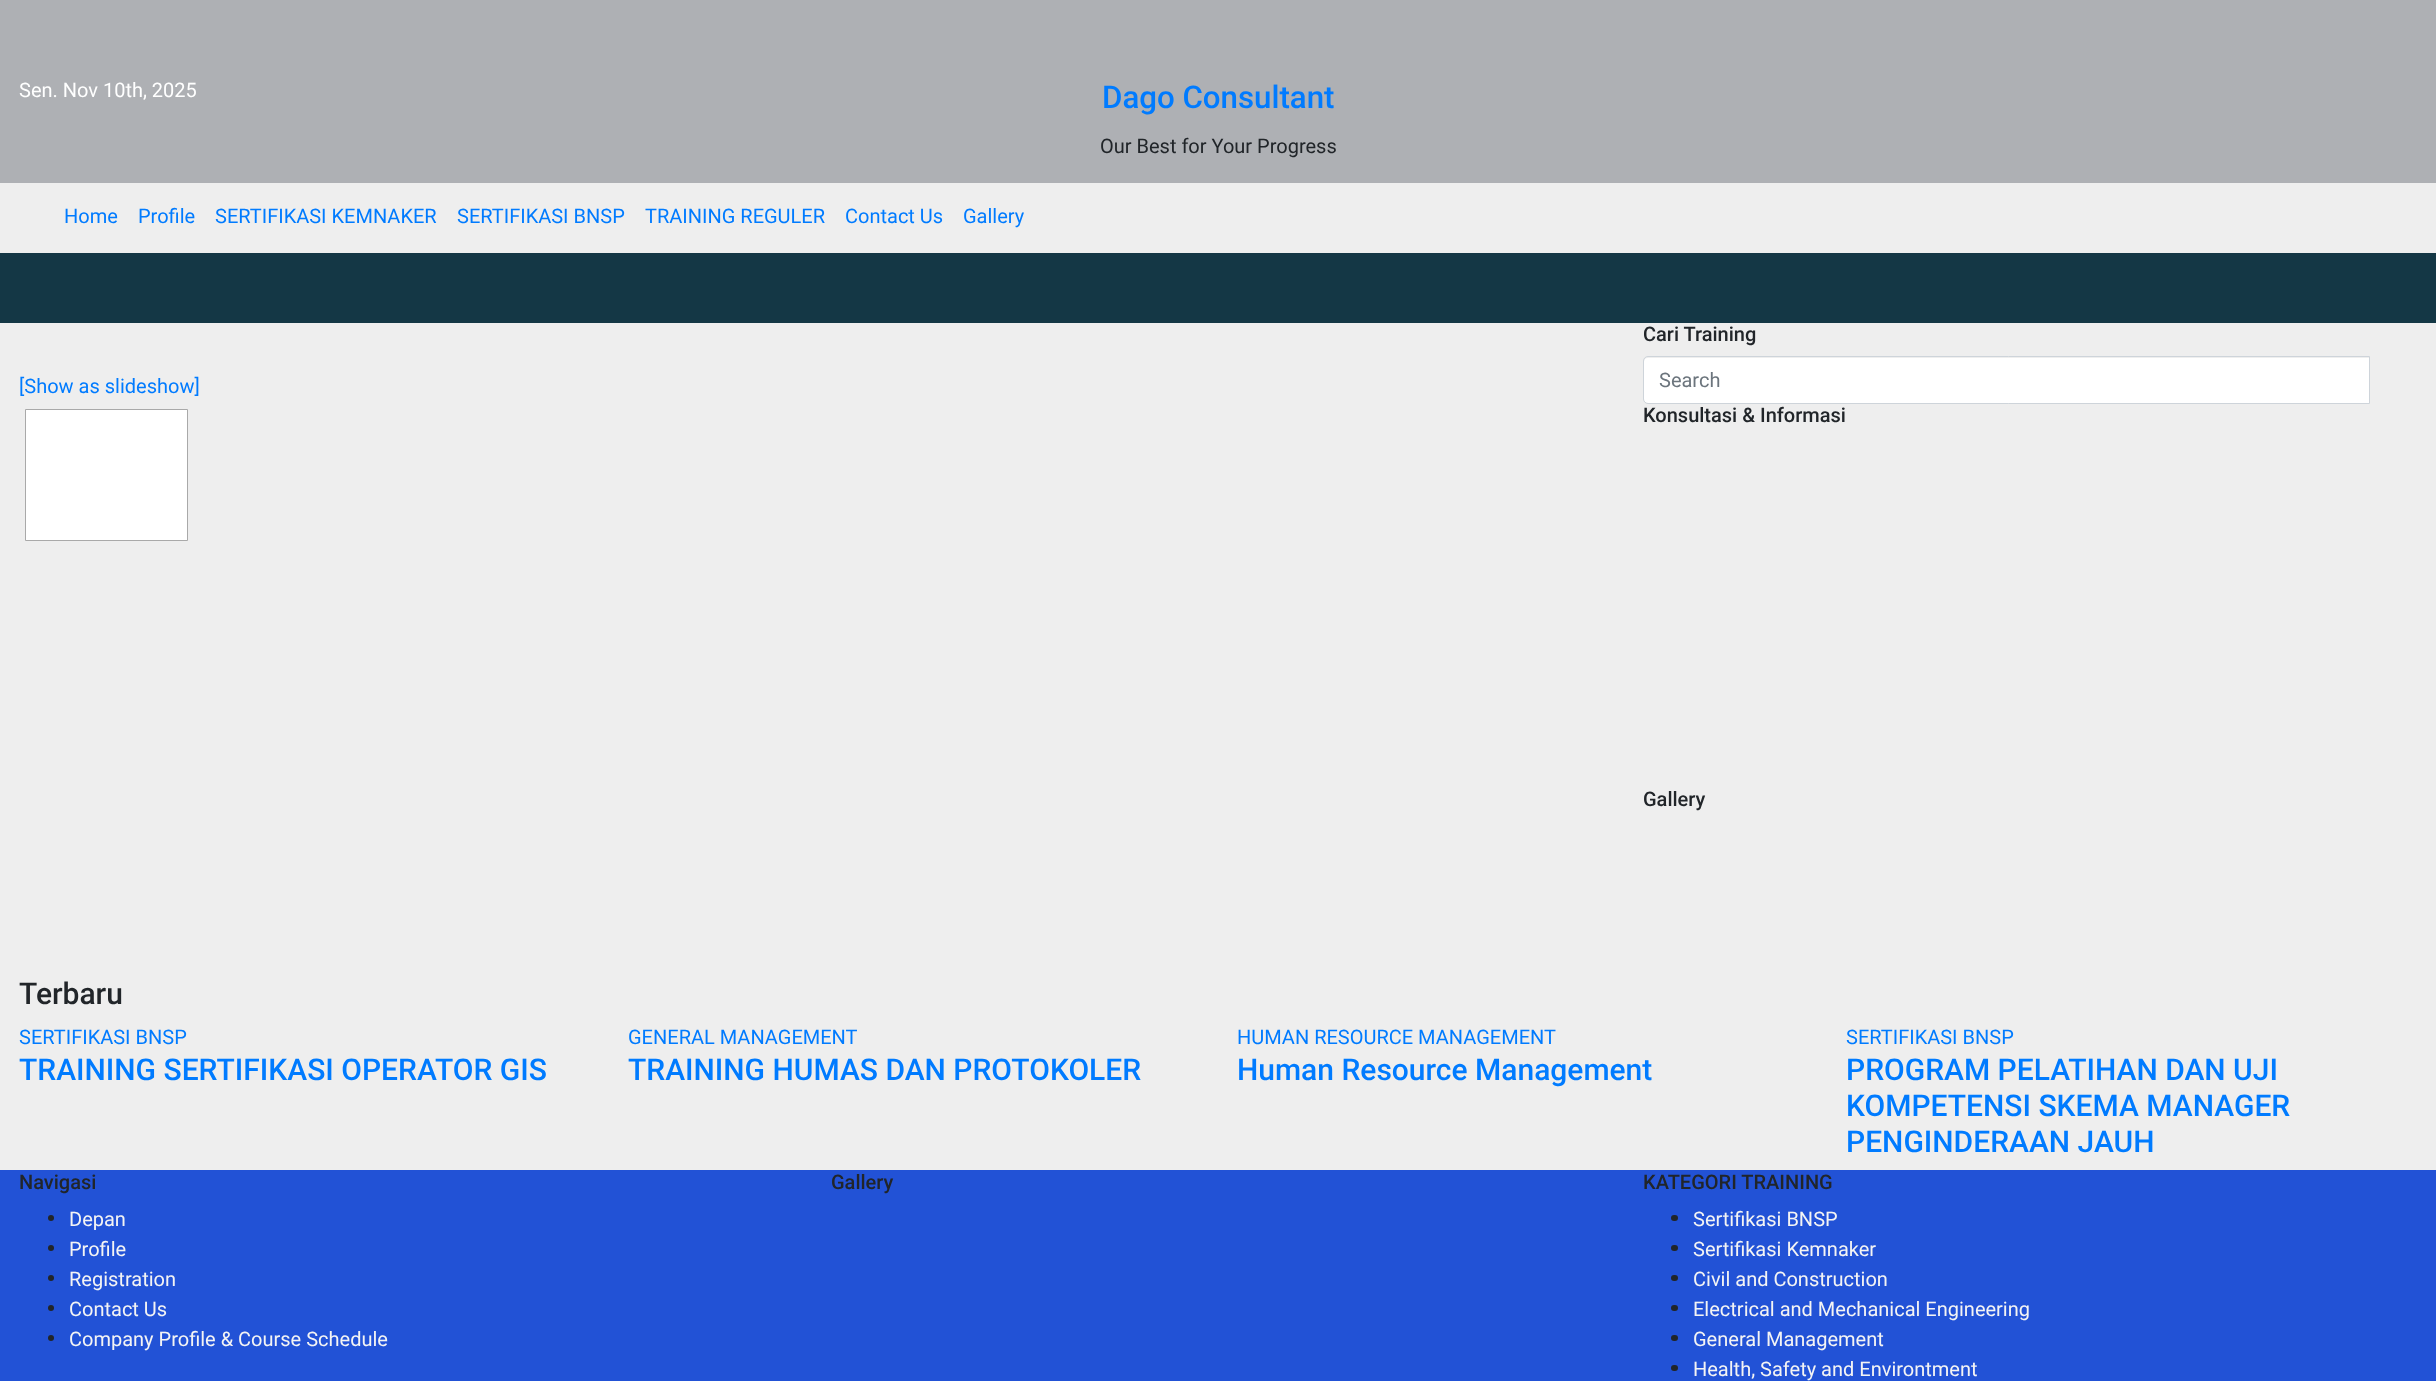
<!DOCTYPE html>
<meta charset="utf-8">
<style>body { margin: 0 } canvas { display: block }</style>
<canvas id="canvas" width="2436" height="1381"></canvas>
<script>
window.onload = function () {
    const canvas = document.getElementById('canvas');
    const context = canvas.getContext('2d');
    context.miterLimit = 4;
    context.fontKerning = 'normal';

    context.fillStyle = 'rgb(238, 238, 238)';
    context.fillRect(0, 0, 2436, 1381);
    context.fillStyle = 'rgb(174, 176, 180)';
    context.fillRect(0, 0, 2436, 183);
    context.fillStyle = 'rgb(20, 55, 69)';
    context.fillRect(0, 253, 2436, 70);
    context.fillStyle = 'rgb(255, 255, 255)';
    context.beginPath();
    context.rect(25.5, 409.5, 162, 131);
    context.fill();
    context.strokeStyle = 'rgb(169, 169, 169)';
    context.stroke();
    context.beginPath();
    context.roundRect(1644, 358, 725, 45, [4, 0, 0, 4]);
    context.fill();
    context.beginPath();
    context.roundRect(1643.5, 356.5, 726, 47, [4.5, 0, 0, 4.5]);
    context.strokeStyle = 'rgb(206, 212, 218)';
    context.stroke();
    context.fillStyle = 'rgb(34, 82, 214)';
    context.fillRect(0, 1170, 2436, 211);
    context.fillStyle = 'rgb(33, 37, 41)';
    context.beginPath();
    context.arc(51, 1218, 3, 0, 2 * Math.PI);
    context.fill();
    context.beginPath();
    context.arc(51, 1248, 3, 0, 2 * Math.PI);
    context.fill();
    context.beginPath();
    context.arc(51, 1278, 3, 0, 2 * Math.PI);
    context.fill();
    context.beginPath();
    context.arc(51, 1308, 3, 0, 2 * Math.PI);
    context.fill();
    context.beginPath();
    context.arc(51, 1338, 3, 0, 2 * Math.PI);
    context.fill();
    context.beginPath();
    context.roundRect(1671, 1215, 7, 6, 3);
    context.fill();
    context.beginPath();
    context.roundRect(1671, 1245, 7, 6, 3);
    context.fill();
    context.beginPath();
    context.roundRect(1671, 1275, 7, 6, 3);
    context.fill();
    context.beginPath();
    context.roundRect(1671, 1305, 7, 6, 3);
    context.fill();
    context.beginPath();
    context.roundRect(1671, 1335, 7, 6, 3);
    context.fill();
    context.beginPath();
    context.roundRect(1671, 1365, 7, 6, 3);
    context.fill();
    context.font = '20px Roboto';
    context.fillStyle = 'rgb(255, 255, 255)';
    context.fillText('Sen. Nov 10th, 2025', 19, 97);
    context.font = '500 31.25px Roboto';
    context.fillStyle = 'rgb(0, 123, 255)';
    context.fillText('Dago Consultant', 1102, 108);
    context.font = '20px Roboto';
    context.fillStyle = 'rgb(33, 37, 41)';
    context.fillText('Our Best for Your Progress', 1100, 153);
    context.fillStyle = 'rgb(0, 123, 255)';
    context.fillText('Home', 64, 223);
    context.fillText('Profile', 138, 223);
    context.fillText('SERTIFIKASI KEMNAKER', 215, 223);
    context.fillText('SERTIFIKASI BNSP', 457, 223);
    context.fillText('TRAINING REGULER', 645, 223);
    context.fillText('Contact Us', 845, 223);
    context.fillText('Gallery', 963, 223);
    context.fillText('[Show as slideshow]', 19, 393);
    context.font = '500 20px Roboto';
    context.fillStyle = 'rgb(33, 37, 41)';
    context.fillText('Cari Training', 1643, 341);
    context.font = '20px Roboto';
    context.fillStyle = 'rgb(108, 117, 125)';
    context.fillText('Search', 1659, 387);
    context.font = '500 20px Roboto';
    context.fillStyle = 'rgb(33, 37, 41)';
    context.fillText('Konsultasi & Informasi', 1643, 422);
    context.fillText('Gallery', 1643, 806);
    context.font = '500 30px Roboto';
    context.fillText('Terbaru', 19, 1004);
    context.font = '20px Roboto';
    context.fillStyle = 'rgb(0, 123, 255)';
    context.fillText('SERTIFIKASI BNSP', 19, 1044);
    context.font = '500 30px Roboto';
    context.fillText('TRAINING SERTIFIKASI OPERATOR GIS', 19, 1080);
    context.font = '20px Roboto';
    context.fillText('GENERAL MANAGEMENT', 628, 1044);
    context.font = '500 30px Roboto';
    context.fillText('TRAINING HUMAS DAN PROTOKOLER', 628, 1080);
    context.font = '20px Roboto';
    context.fillText('HUMAN RESOURCE MANAGEMENT', 1237, 1044);
    context.font = '500 30px Roboto';
    context.fillText('Human Resource Management', 1237, 1080);
    context.font = '20px Roboto';
    context.fillText('SERTIFIKASI BNSP', 1846, 1044);
    context.font = '500 30px Roboto';
    context.fillText('PROGRAM PELATIHAN DAN UJI', 1846, 1080);
    context.fillText('KOMPETENSI SKEMA MANAGER', 1846, 1116);
    context.fillText('PENGINDERAAN JAUH', 1846, 1152);
    context.font = '500 20px Roboto';
    context.fillStyle = 'rgb(33, 37, 41)';
    context.fillText('Navigasi', 19, 1189);
    context.font = '20px Roboto';
    context.fillStyle = 'rgb(244, 244, 244)';
    context.fillText('Depan', 69, 1226);
    context.fillText('Profile', 69, 1256);
    context.fillText('Registration', 69, 1286);
    context.fillText('Contact Us', 69, 1316);
    context.fillText('Company Profile & Course Schedule', 69, 1346);
    context.font = '500 20px Roboto';
    context.fillStyle = 'rgb(33, 37, 41)';
    context.fillText('Gallery', 831, 1189);
    context.fillText('KATEGORI TRAINING', 1643, 1189);
    context.font = '20px Roboto';
    context.fillStyle = 'rgb(244, 244, 244)';
    context.fillText('Sertifikasi BNSP', 1693, 1226);
    context.fillText('Sertifikasi Kemnaker', 1693, 1256);
    context.fillText('Civil and Construction', 1693, 1286);
    context.fillText('Electrical and Mechanical Engineering', 1693, 1316);
    context.fillText('General Management', 1693, 1346);
    context.fillText('Health, Safety and Environtment', 1693, 1376);
};
</script>
